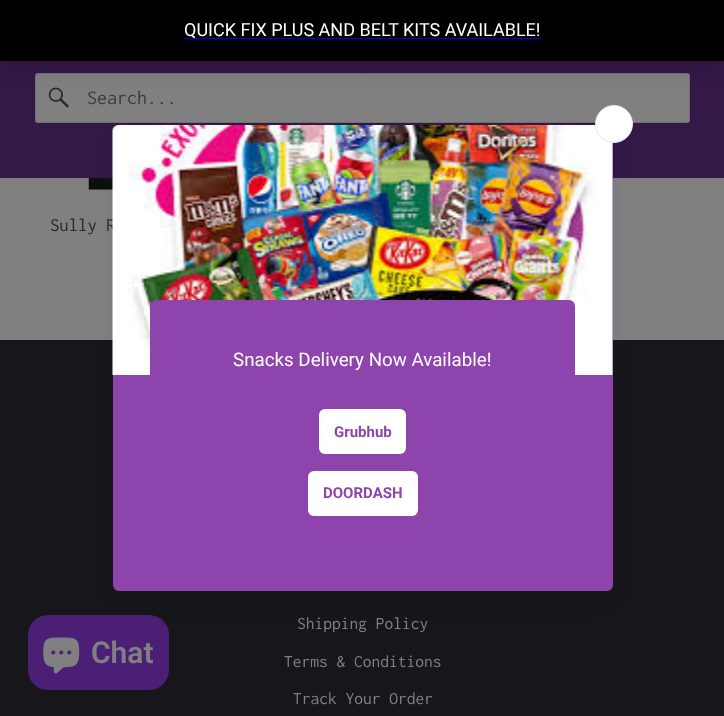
<!DOCTYPE html>
<meta charset="utf-8">
<style>body { margin: 0 } canvas { display: block }</style>
<canvas id="canvas" width="724" height="716"></canvas>
<img id="img1" src="images/1.png" hidden>
<img id="img2" src="images/3.png" hidden>
<img id="img3" src="images/4.png" hidden>
<img id="img4" src="images/2.png" hidden>
<script>
window.onload = function () {
    const canvas = document.getElementById('canvas');
    const context = canvas.getContext('2d');
    context.miterLimit = 4;
    context.fontKerning = 'normal';

    context.fillStyle = 'rgb(128, 128, 128)';
    context.fillRect(0, 0, 724, 716);
    context.fillStyle = 'rgb(52, 24, 72)';
    context.fillRect(0, 61, 724, 117);
    context.fillStyle = 'rgb(128, 128, 128)';
    context.beginPath();
    context.roundRect(35.5, 73.5, 654, 49, 2);
    context.fill();
    context.strokeStyle = 'rgb(112, 112, 112)';
    context.stroke();
    context.drawImage(document.getElementById('img1'), 48, 87, 21, 21);
    context.fillStyle = 'rgba(0, 0, 0, 0.1)';
    context.filter = 'blur(9.5px)';
    context.beginPath();
    context.rect(4, 16, 717, 54);
    context.fill();
    context.filter = 'none';
    context.fillStyle = 'rgb(0, 0, 0)';
    context.fillRect(0, 0, 724, 61);
    context.fillStyle = 'rgb(0, 0, 238)';
    context.fillRect(184, 38, 357, 1);
    context.drawImage(document.getElementById('img2'), 88, 178, 25, 12);
    context.fillStyle = 'rgb(23, 22, 27)';
    context.fillRect(0, 340, 724, 376);
    context.fillStyle = 'rgb(75, 31, 118)';
    context.beginPath();
    context.roundRect(28, 615, 141, 75, 20);
    context.fill();
    context.fillStyle = 'rgba(0, 0, 0, 0.1)';
    context.filter = 'blur(9.5px)';
    context.beginPath();
    context.roundRect(116, 141, 493, 459, 2.5);
    context.fill();
    context.filter = 'none';
    context.drawImage(document.getElementById('img3'), 43, 637, 37, 37);
    context.font = '20px Inconsolata';
    context.fillStyle = 'rgb(59, 59, 59)';
    context.fillText('Search...', 87, 104);
    context.font = '18px Roboto';
    context.fillStyle = 'rgb(255, 255, 255)';
    context.fillText('QUICK FIX PLUS AND BELT KITS AVAILABLE!', 184, 36);
    context.font = '18.75px Inconsolata';
    context.fillStyle = 'rgb(38, 40, 42)';
    context.fillText('Sully R', 50, 231);
    context.fillStyle = 'rgb(142, 68, 173)';
    context.beginPath();
    context.roundRect(113, 125, 500, 466, 6);
    context.fill();
    context.drawImage(document.getElementById('img4'), 112, 125, 501, 250);
    context.fillStyle = 'rgb(255, 255, 255)';
    context.beginPath();
    context.arc(614, 124, 18.5, 0, 2 * Math.PI);
    context.fill();
    context.strokeStyle = 'rgb(226, 232, 240)';
    context.stroke();
    context.fillStyle = 'rgb(142, 68, 173)';
    context.beginPath();
    context.roundRect(150, 300, 425, 254, 6);
    context.fill();
    context.fillStyle = 'rgb(255, 255, 255)';
    context.beginPath();
    context.roundRect(308, 471, 110, 45, 6);
    context.fill();
    context.font = 'bold 15px Roboto';
    context.fillStyle = 'rgb(142, 68, 173)';
    context.fillText('DOORDASH', 323, 498);
    context.fillStyle = 'rgb(255, 255, 255)';
    context.beginPath();
    context.roundRect(319, 409, 87, 45, 6);
    context.fill();
    context.fillStyle = 'rgb(142, 68, 173)';
    context.fillText('Grubhub', 334, 437);
    context.font = '18.75px Roboto';
    context.fillStyle = 'rgb(255, 255, 255)';
    context.fillText('Snacks Delivery Now Available!', 233, 366);
    context.font = '600 30px Roboto';
    context.fillStyle = 'rgb(128, 128, 128)';
    context.fillText('Chat', 91, 663);
    context.font = '17.5px Inconsolata';
    context.fillText('Shipping Policy', 297, 629);
    context.fillText('Terms & Conditions', 284, 667);
    context.fillText('Track Your Order', 293, 704);
};
</script>
